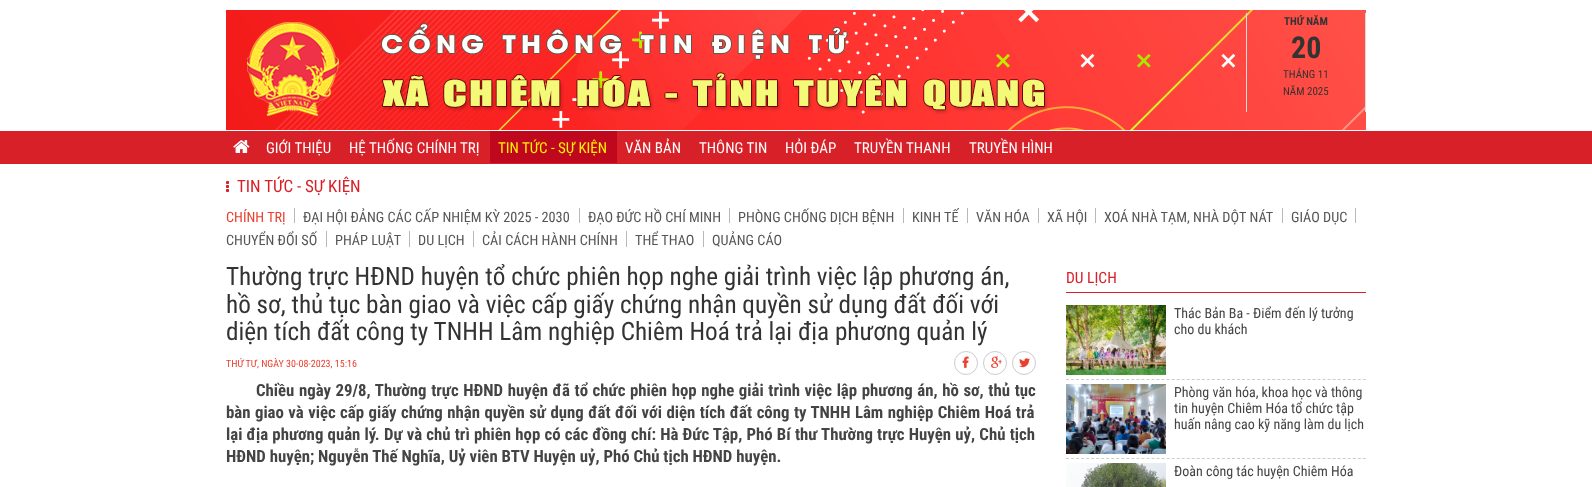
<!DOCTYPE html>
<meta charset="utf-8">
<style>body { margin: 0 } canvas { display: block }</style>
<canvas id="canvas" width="1592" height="487"></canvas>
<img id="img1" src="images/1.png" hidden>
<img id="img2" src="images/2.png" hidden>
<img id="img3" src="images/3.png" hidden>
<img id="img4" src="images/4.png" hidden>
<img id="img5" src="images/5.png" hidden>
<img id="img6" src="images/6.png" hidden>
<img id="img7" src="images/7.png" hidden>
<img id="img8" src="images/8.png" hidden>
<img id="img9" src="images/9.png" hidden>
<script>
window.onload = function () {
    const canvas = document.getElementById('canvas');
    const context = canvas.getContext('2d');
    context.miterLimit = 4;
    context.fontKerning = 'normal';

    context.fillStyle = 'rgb(255, 255, 255)';
    context.fillRect(0, 0, 1592, 487);
    context.drawImage(document.getElementById('img1'), 226, 10, 1140, 120);
    context.fillStyle = 'rgb(221, 221, 221)';
    context.fillRect(1365, 13, 1, 99);
    context.fillRect(1246, 13, 1, 99);
    context.fillStyle = 'rgb(215, 32, 39)';
    context.fillRect(0, 131, 1592, 33);
    context.drawImage(document.getElementById('img2'), 233, 140, 17, 13);
    context.fillStyle = 'rgb(191, 8, 29)';
    context.fillRect(490, 131, 127, 32);
    context.drawImage(document.getElementById('img3'), 226, 181, 3, 11);
    context.fillStyle = 'rgb(185, 183, 183)';
    context.fillRect(294, 208, 1, 15);
    context.fillRect(579, 208, 1, 15);
    context.fillRect(729, 208, 1, 15);
    context.fillRect(903, 208, 1, 15);
    context.fillRect(967, 208, 1, 15);
    context.fillRect(1038, 208, 1, 15);
    context.fillRect(1095, 208, 1, 15);
    context.fillRect(1282, 208, 1, 15);
    context.fillRect(1355, 208, 1, 15);
    context.fillRect(326, 231, 1, 16);
    context.fillRect(409, 231, 1, 16);
    context.fillRect(473, 231, 1, 16);
    context.fillRect(626, 231, 1, 16);
    context.fillRect(703, 231, 1, 16);
    context.beginPath();
    context.arc(966, 363, 11.5, 0, 2 * Math.PI);
    context.strokeStyle = 'rgb(204, 204, 204)';
    context.stroke();
    context.drawImage(document.getElementById('img4'), 962, 356, 7, 12);
    context.beginPath();
    context.arc(995, 363, 11.5, 0, 2 * Math.PI);
    context.stroke();
    context.drawImage(document.getElementById('img5'), 991, 356, 11, 12);
    context.beginPath();
    context.arc(1024, 363, 11.5, 0, 2 * Math.PI);
    context.stroke();
    context.drawImage(document.getElementById('img6'), 1019, 358, 11, 10);
    context.fillStyle = 'rgb(215, 32, 39)';
    context.fillRect(1066, 292, 300, 1);
    context.beginPath();
    context.moveTo(1066, 379.5);
    context.lineTo(1366, 379.5);
    context.setLineDash([3, 2.03]);
    context.stroke();
    context.drawImage(document.getElementById('img7'), 1066, 305, 100, 70);
    context.beginPath();
    context.moveTo(1066, 458.5);
    context.lineTo(1366, 458.5);
    context.stroke();
    context.drawImage(document.getElementById('img8'), 1066, 384, 100, 70);
    context.drawImage(document.getElementById('img9'), 1066, 463, 100, 24);
    context.font = 'bold 11px Roboto Condensed';
    context.fillStyle = 'rgb(51, 51, 51)';
    context.fillText('THỨ NĂM', 1284, 25);
    context.font = 'bold 30px Roboto Condensed';
    context.fillText('20', 1291, 58);
    context.font = '11px Roboto Condensed';
    context.fillText('THÁNG 11', 1283, 78);
    context.fillText('NĂM 2025', 1283, 95);
    context.font = '15px Roboto Condensed';
    context.fillStyle = 'rgb(255, 255, 255)';
    context.fillText('GIỚI THIỆU', 266, 153);
    context.fillText('HỆ THỐNG CHÍNH TRỊ', 349, 153);
    context.fillStyle = 'rgb(255, 240, 4)';
    context.fillText('TIN TỨC - SỰ KIỆN', 498, 153);
    context.fillStyle = 'rgb(255, 255, 255)';
    context.fillText('VĂN BẢN', 625, 153);
    context.fillText('THÔNG TIN', 699, 153);
    context.fillText('HỎI ĐÁP', 785, 153);
    context.fillText('TRUYỀN THANH', 854, 153);
    context.fillText('TRUYỀN HÌNH', 969, 153);
    context.font = '17px Roboto Condensed';
    context.fillStyle = 'rgb(215, 32, 39)';
    context.fillText('TIN TỨC - SỰ KIỆN', 237, 192);
    context.font = '14.25px Roboto Condensed';
    context.fillStyle = 'rgb(233, 63, 46)';
    context.fillText('CHÍNH TRỊ', 226, 222);
    context.fillStyle = 'rgb(85, 85, 85)';
    context.fillText('ĐẠI HỘI ĐẢNG CÁC CẤP NHIỆM KỲ 2025 - 2030', 303, 222);
    context.fillText('ĐẠO ĐỨC HỒ CHÍ MINH', 588, 222);
    context.fillText('PHÒNG CHỐNG DỊCH BỆNH', 738, 222);
    context.fillText('KINH TẾ', 912, 222);
    context.fillText('VĂN HÓA', 976, 222);
    context.fillText('XÃ HỘI', 1047, 222);
    context.fillText('XOÁ NHÀ TẠM, NHÀ DỘT NÁT', 1104, 222);
    context.fillText('GIÁO DỤC', 1291, 222);
    context.fillText('CHUYỂN ĐỔI SỐ', 226, 245);
    context.fillText('PHÁP LUẬT', 335, 245);
    context.fillText('DU LỊCH', 418, 245);
    context.fillText('CẢI CÁCH HÀNH CHÍNH', 482, 245);
    context.fillText('THỂ THAO', 635, 245);
    context.fillText('QUẢNG CÁO', 712, 245);
    context.font = '25.2px Roboto Condensed';
    context.fillStyle = 'rgb(51, 51, 51)';
    context.fillText('Thường trực HĐND huyện tổ chức phiên họp nghe giải trình việc lập phương án,', 226, 285);
    context.fillText('hồ sơ, thủ tục bàn giao và việc cấp giấy chứng nhận quyền sử dụng đất đối với', 226, 313);
    context.fillText('diện tích đất công ty TNHH Lâm nghiệp Chiêm Hoá trả lại địa phương quản lý', 226, 340);
    context.font = '10px Roboto Condensed';
    context.fillStyle = 'rgb(233, 63, 46)';
    context.fillText('THỨ TƯ, NGÀY 30-08-2023, 15:16', 226, 367);
    context.wordSpacing = '0.75px';
    context.font = 'bold 16.8px Roboto Condensed';
    context.fillStyle = 'rgb(68, 68, 68)';
    context.fillText('Chiều ngày 29/8, Thường trực HĐND huyện đã tổ chức phiên họp nghe giải trình việc lập phương án, hồ sơ, thủ tục', 256, 396);
    context.wordSpacing = '0.6px';
    context.fillText('bàn giao và việc cấp giấy chứng nhận quyền sử dụng đất đối với diện tích đất công ty TNHH Lâm nghiệp Chiêm Hoá trả', 226, 418);
    context.wordSpacing = '0.35px';
    context.fillText('lại địa phương quản lý. Dự và chủ trì phiên họp có các đồng chí: Hà Đức Tập, Phó Bí thư Thường trực Huyện uỷ, Chủ tịch', 226, 440);
    context.wordSpacing = '0px';
    context.fillText('HĐND huyện; Nguyễn Thế Nghĩa, Uỷ viên BTV Huyện uỷ, Phó Chủ tịch HĐND huyện.', 226, 462);
    context.font = '15.5px Roboto Condensed';
    context.fillStyle = 'rgb(215, 32, 39)';
    context.fillText('DU LỊCH', 1066, 283);
    context.font = '14px Roboto Condensed';
    context.fillStyle = 'rgb(68, 68, 68)';
    context.fillText('Thác Bản Ba - Điểm đến lý tưởng', 1174, 318);
    context.fillText('cho du khách', 1174, 334);
    context.fillText('Phòng văn hóa, khoa học và thông', 1174, 397);
    context.fillText('tin huyện Chiêm Hóa tổ chức tập', 1174, 413);
    context.fillText('huấn nâng cao kỹ năng làm du lịch', 1174, 429);
    context.fillText('Đoàn công tác huyện Chiêm Hóa', 1174, 476);
};
</script>
